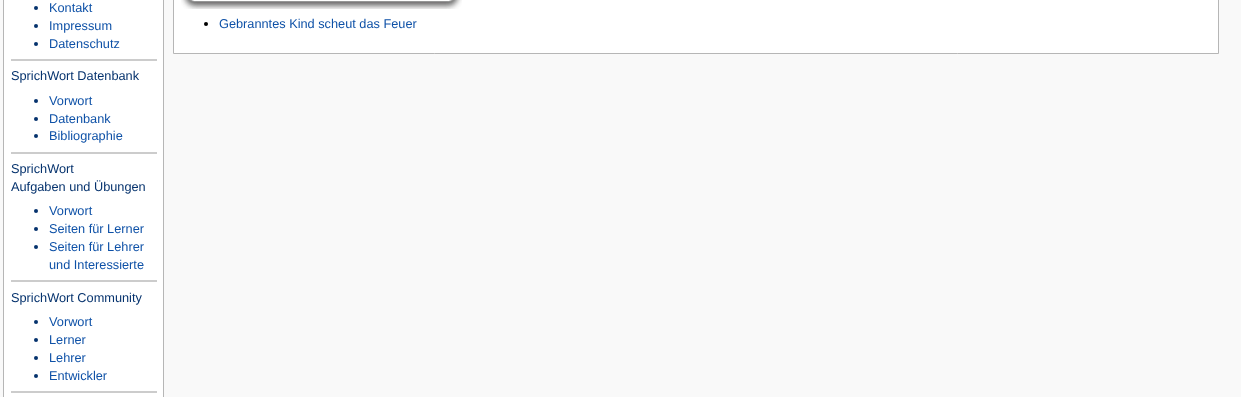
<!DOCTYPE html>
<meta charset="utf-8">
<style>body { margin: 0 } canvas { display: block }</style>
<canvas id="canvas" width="1241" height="397"></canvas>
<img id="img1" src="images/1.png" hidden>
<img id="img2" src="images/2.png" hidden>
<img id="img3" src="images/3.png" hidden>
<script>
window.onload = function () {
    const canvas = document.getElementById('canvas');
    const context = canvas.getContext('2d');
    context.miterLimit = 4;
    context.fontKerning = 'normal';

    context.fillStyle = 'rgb(249, 249, 249)';
    context.fillRect(0, 0, 1241, 397);
    context.fillStyle = 'rgb(255, 255, 255)';
    context.beginPath();
    context.rect(3.5, -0.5, 160, 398);
    context.fill();
    context.strokeStyle = 'rgb(182, 182, 182)';
    context.stroke();
    context.fillStyle = 'rgb(5, 50, 109)';
    context.beginPath();
    context.arc(36, 8, 2, 0, 2 * Math.PI);
    context.fill();
    context.beginPath();
    context.arc(36, 26, 2, 0, 2 * Math.PI);
    context.fill();
    context.beginPath();
    context.arc(36, 44, 2, 0, 2 * Math.PI);
    context.fill();
    context.fillStyle = 'rgb(204, 204, 204)';
    context.fillRect(11, 59, 146, 2);
    context.fillStyle = 'rgb(5, 50, 109)';
    context.beginPath();
    context.arc(36, 101, 2, 0, 2 * Math.PI);
    context.fill();
    context.beginPath();
    context.arc(36, 119, 2, 0, 2 * Math.PI);
    context.fill();
    context.beginPath();
    context.arc(36, 136, 2, 0, 2 * Math.PI);
    context.fill();
    context.fillStyle = 'rgb(204, 204, 204)';
    context.fillRect(11, 152, 146, 2);
    context.fillStyle = 'rgb(5, 50, 109)';
    context.beginPath();
    context.arc(36, 211, 2, 0, 2 * Math.PI);
    context.fill();
    context.beginPath();
    context.arc(36, 229, 2, 0, 2 * Math.PI);
    context.fill();
    context.beginPath();
    context.arc(36, 247, 2, 0, 2 * Math.PI);
    context.fill();
    context.fillStyle = 'rgb(204, 204, 204)';
    context.fillRect(11, 280, 146, 2);
    context.fillStyle = 'rgb(5, 50, 109)';
    context.beginPath();
    context.arc(36, 322, 2, 0, 2 * Math.PI);
    context.fill();
    context.beginPath();
    context.arc(36, 340, 2, 0, 2 * Math.PI);
    context.fill();
    context.beginPath();
    context.arc(36, 358, 2, 0, 2 * Math.PI);
    context.fill();
    context.beginPath();
    context.arc(36, 376, 2, 0, 2 * Math.PI);
    context.fill();
    context.fillStyle = 'rgb(204, 204, 204)';
    context.fillRect(11, 391, 146, 2);
    context.fillStyle = 'rgb(255, 255, 255)';
    context.beginPath();
    context.rect(173.5, -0.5, 1045, 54);
    context.fill();
    context.stroke();
    context.drawImage(document.getElementById('img1'), 181, 0, 16, 9);
    context.drawImage(document.getElementById('img2'), 197, 1, 249, 8);
    context.drawImage(document.getElementById('img3'), 446, 0, 16, 9);
    context.fillStyle = 'rgb(0, 0, 0)';
    context.beginPath();
    context.arc(206, 24, 2, 0, 2 * Math.PI);
    context.fill();
    context.font = '12.75px Liberation Sans';
    context.fillStyle = 'rgb(14, 81, 167)';
    context.fillText('Kontakt', 49, 12);
    context.fillText('Impressum', 49, 30);
    context.fillText('Datenschutz', 49, 48);
    context.fillStyle = 'rgb(5, 50, 109)';
    context.fillText('SprichWort Datenbank', 11, 80);
    context.fillStyle = 'rgb(14, 81, 167)';
    context.fillText('Vorwort', 49, 105);
    context.fillText('Datenbank', 49, 123);
    context.fillText('Bibliographie', 49, 140);
    context.fillStyle = 'rgb(5, 50, 109)';
    context.fillText('SprichWort', 11, 173);
    context.fillText('Aufgaben und Übungen', 11, 191);
    context.fillStyle = 'rgb(14, 81, 167)';
    context.fillText('Vorwort', 49, 215);
    context.fillText('Seiten für Lerner', 49, 233);
    context.fillText('Seiten für Lehrer', 49, 251);
    context.fillText('und Interessierte', 49, 269);
    context.fillStyle = 'rgb(5, 50, 109)';
    context.fillText('SprichWort Community', 11, 302);
    context.fillStyle = 'rgb(14, 81, 167)';
    context.fillText('Vorwort', 49, 326);
    context.fillText('Lerner', 49, 344);
    context.fillText('Lehrer', 49, 362);
    context.fillText('Entwickler', 49, 380);
    context.fillText('Gebranntes Kind scheut das Feuer', 219, 28);
};
</script>
